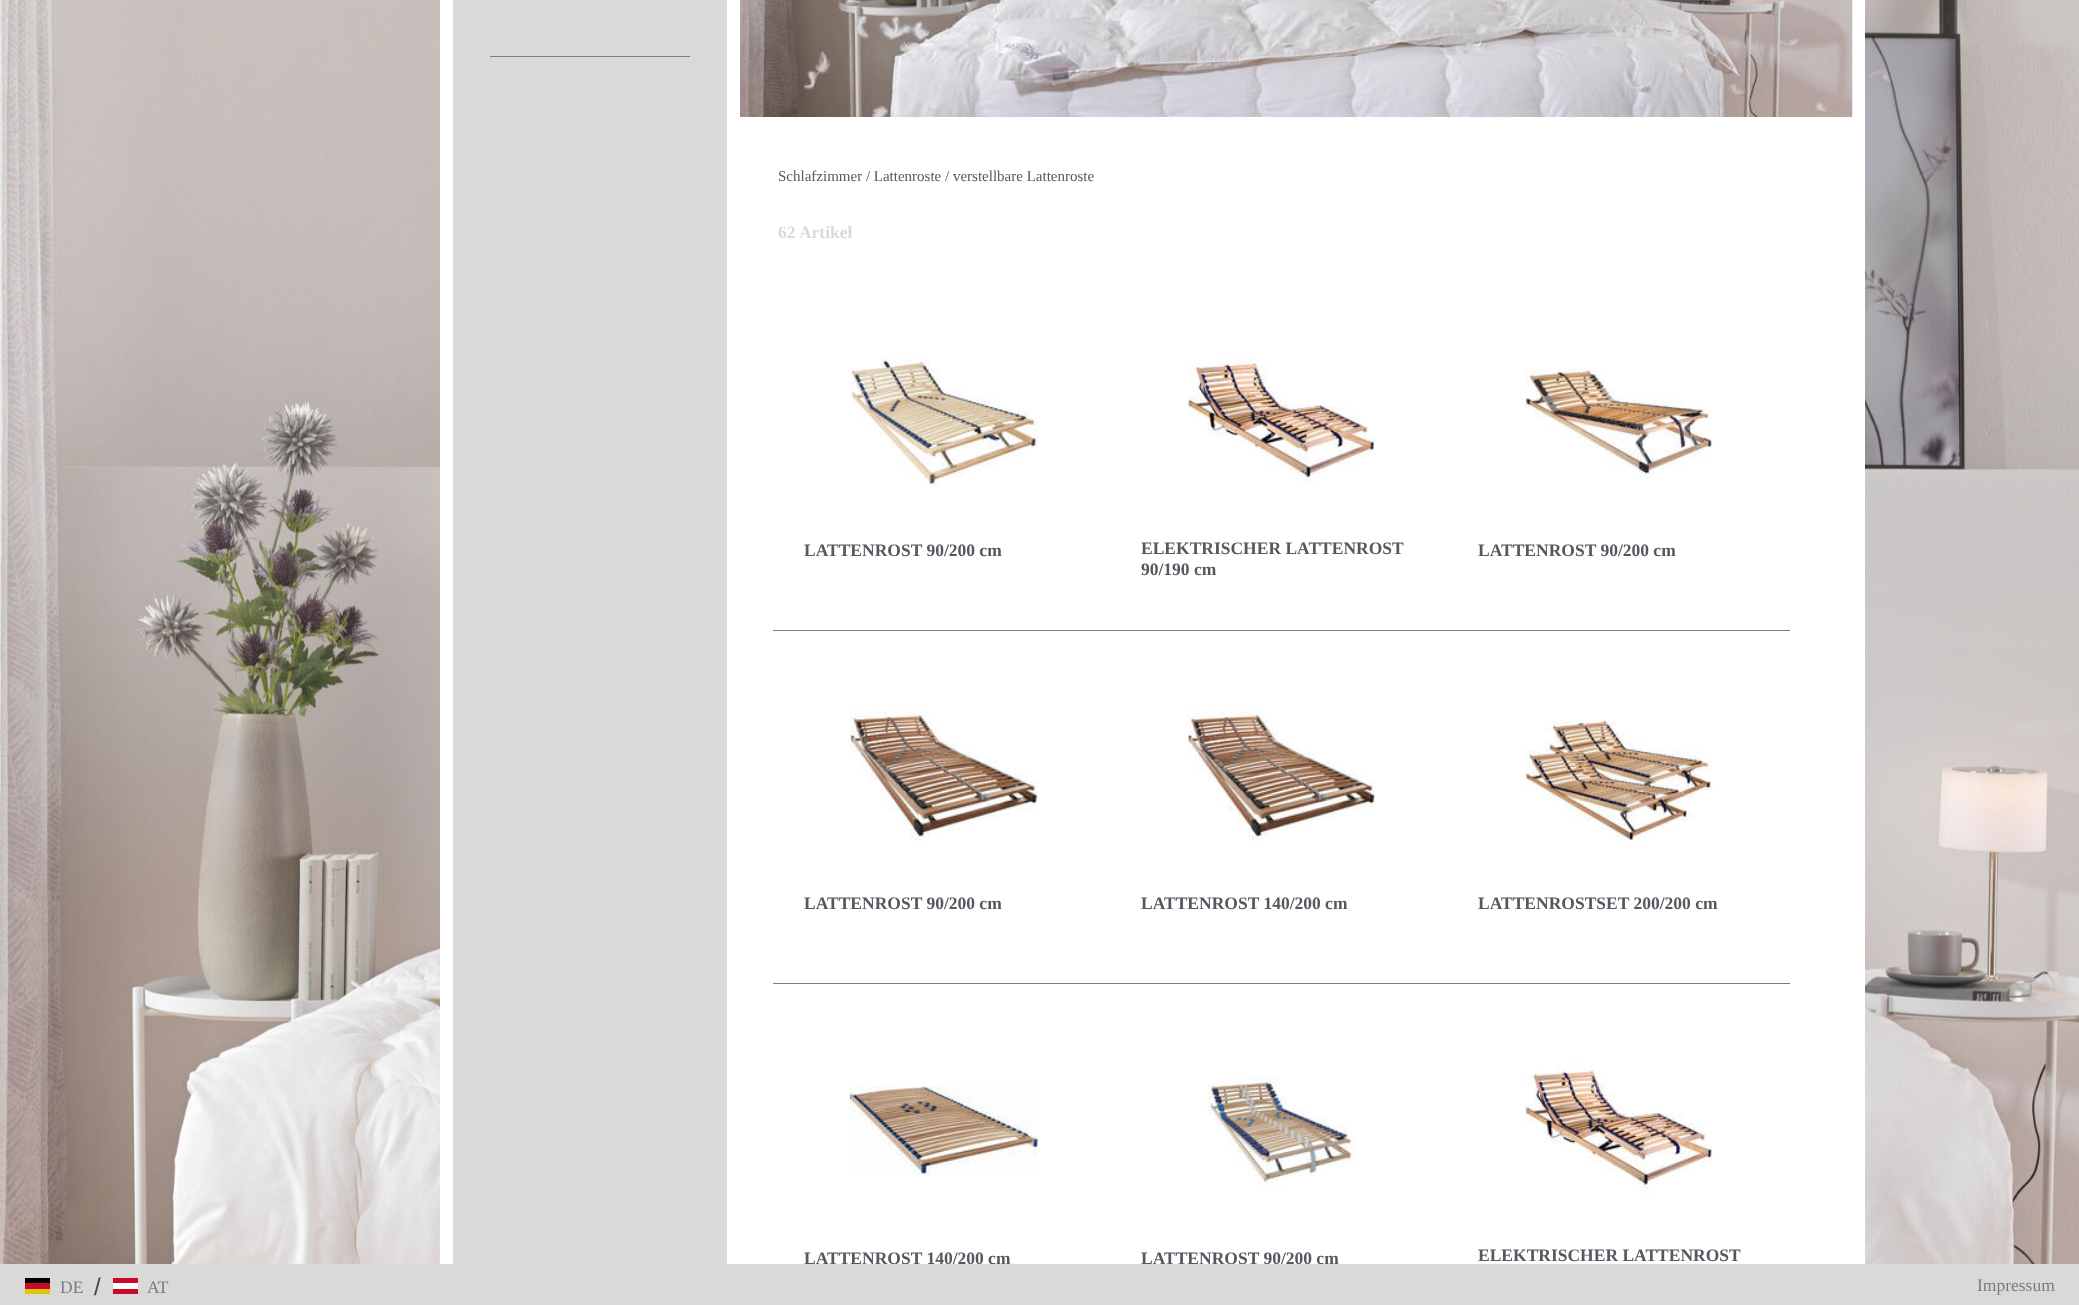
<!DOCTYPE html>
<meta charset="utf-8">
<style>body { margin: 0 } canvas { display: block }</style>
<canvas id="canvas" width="2079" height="1305"></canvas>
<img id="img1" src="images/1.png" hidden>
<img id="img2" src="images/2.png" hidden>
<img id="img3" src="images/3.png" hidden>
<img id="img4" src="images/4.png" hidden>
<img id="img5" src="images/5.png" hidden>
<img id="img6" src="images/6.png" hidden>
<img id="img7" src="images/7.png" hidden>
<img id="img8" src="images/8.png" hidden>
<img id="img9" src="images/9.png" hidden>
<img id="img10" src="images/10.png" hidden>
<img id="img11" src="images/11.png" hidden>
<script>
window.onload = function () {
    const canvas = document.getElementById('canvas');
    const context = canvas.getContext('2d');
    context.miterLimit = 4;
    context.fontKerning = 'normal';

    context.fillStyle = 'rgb(255, 255, 255)';
    context.fillRect(0, 0, 2079, 1305);
    context.drawImage(document.getElementById('img1'), 0, 0, 2079, 1264);
    context.fillRect(740, 0, 1125, 1264);
    context.drawImage(document.getElementById('img2'), 740, 0, 1113, 117);
    context.fillStyle = 'rgb(219, 217, 216)';
    context.fillRect(453, 0, 274, 1264);
    context.strokeStyle = 'rgb(255, 255, 255)';
    context.lineWidth = 13;
    context.strokeRect(446.5, -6.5, 287, 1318);
    context.fillStyle = 'rgb(124, 122, 136)';
    context.fillRect(490, 56, 200, 1);
    context.fillRect(773, 630, 1017, 1);
    context.drawImage(document.getElementById('img3'), 850, 358, 188, 131);
    context.drawImage(document.getElementById('img4'), 1187, 356, 188, 130);
    context.drawImage(document.getElementById('img5'), 1525, 368, 188, 110);
    context.fillRect(773, 983, 1017, 1);
    context.drawImage(document.getElementById('img6'), 850, 711, 188, 130);
    context.drawImage(document.getElementById('img7'), 1187, 711, 188, 130);
    context.drawImage(document.getElementById('img8'), 1525, 720, 188, 121);
    context.drawImage(document.getElementById('img9'), 850, 1086, 188, 90);
    context.drawImage(document.getElementById('img10'), 1207, 1076, 151, 110);
    context.drawImage(document.getElementById('img11'), 1525, 1063, 188, 130);
    context.font = '15px Liberation Serif';
    context.fillStyle = 'rgb(87, 88, 95)';
    context.fillText('Schlafzimmer / Lattenroste / verstellbare Lattenroste', 778, 181);
    context.font = 'bold 17.5px Liberation Serif';
    context.fillStyle = 'rgb(219, 217, 216)';
    context.fillText('62 Artikel', 778, 238);
    context.fillStyle = 'rgb(87, 88, 95)';
    context.fillText('LATTENROST 90/200 cm', 804, 556);
    context.fillText('ELEKTRISCHER LATTENROST', 1141, 554);
    context.fillText('90/190 cm', 1141, 575);
    context.fillText('LATTENROST 90/200 cm', 1478, 556);
    context.fillText('LATTENROST 90/200 cm', 804, 909);
    context.fillText('LATTENROST 140/200 cm', 1141, 909);
    context.fillText('LATTENROSTSET 200/200 cm', 1478, 909);
    context.fillText('LATTENROST 140/200 cm', 804, 1264);
    context.fillText('LATTENROST 90/200 cm', 1141, 1264);
    context.fillText('ELEKTRISCHER LATTENROST', 1478, 1261);
    context.fillStyle = 'rgb(219, 217, 216)';
    context.fillRect(0, 1264, 2079, 41);
    context.fillStyle = 'rgb(0, 0, 0)';
    context.fillRect(25, 1278, 25, 5);
    context.fillStyle = 'rgb(199, 9, 44)';
    context.fillRect(25, 1283, 25, 6);
    context.fillStyle = 'rgb(221, 199, 11)';
    context.fillRect(25, 1289, 25, 5);
    context.font = '17.5px Liberation Serif';
    context.fillStyle = 'rgb(124, 122, 136)';
    context.fillText('DE', 60, 1293);
    context.font = '24px Liberation Sans';
    context.fillStyle = 'rgb(65, 71, 66)';
    context.fillText('/', 94, 1295);
    context.fillStyle = 'rgb(199, 9, 44)';
    context.fillRect(113, 1278, 25, 5);
    context.fillStyle = 'rgb(255, 255, 255)';
    context.fillRect(113, 1283, 25, 6);
    context.fillStyle = 'rgb(199, 9, 44)';
    context.fillRect(113, 1289, 25, 5);
    context.font = '17.5px Liberation Serif';
    context.fillStyle = 'rgb(124, 122, 136)';
    context.fillText('AT', 147, 1293);
    context.fillText('Impressum', 1977, 1291);
};
</script>
